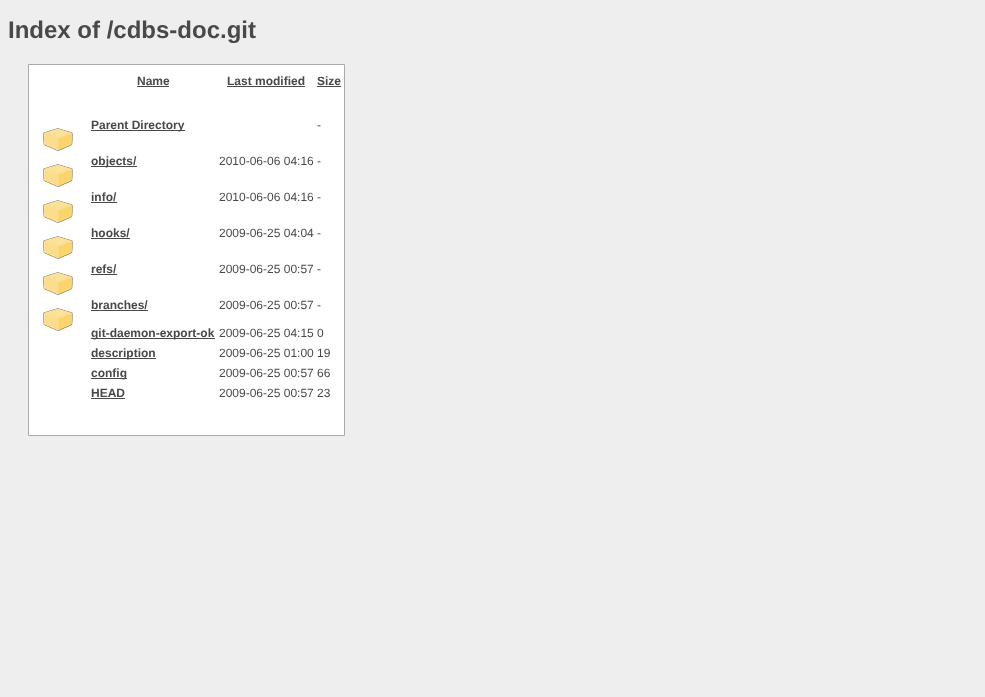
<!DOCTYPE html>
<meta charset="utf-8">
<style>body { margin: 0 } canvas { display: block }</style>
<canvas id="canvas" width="985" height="697"></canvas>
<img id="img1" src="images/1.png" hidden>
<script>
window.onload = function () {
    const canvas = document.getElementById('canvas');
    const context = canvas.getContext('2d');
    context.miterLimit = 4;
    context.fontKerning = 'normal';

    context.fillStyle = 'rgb(238, 238, 238)';
    context.fillRect(0, 0, 985, 697);
    context.fillStyle = 'rgb(255, 255, 255)';
    context.beginPath();
    context.rect(28.5, 64.5, 316, 371);
    context.fill();
    context.strokeStyle = 'rgb(170, 170, 170)';
    context.stroke();
    context.fillStyle = 'rgb(73, 73, 73)';
    context.fillRect(137, 86, 32, 1);
    context.fillRect(227, 86, 78, 1);
    context.fillRect(317, 86, 24, 1);
    context.fillRect(91, 130, 94, 1);
    context.drawImage(document.getElementById('img1'), 43, 128, 30, 23);
    context.fillRect(91, 166, 46, 1);
    context.drawImage(document.getElementById('img1'), 43, 164, 30, 23);
    context.fillRect(91, 202, 26, 1);
    context.drawImage(document.getElementById('img1'), 43, 200, 30, 23);
    context.fillRect(91, 238, 39, 1);
    context.drawImage(document.getElementById('img1'), 43, 236, 30, 23);
    context.fillRect(91, 274, 26, 1);
    context.drawImage(document.getElementById('img1'), 43, 272, 30, 23);
    context.fillRect(91, 310, 57, 1);
    context.drawImage(document.getElementById('img1'), 43, 308, 30, 23);
    context.fillRect(91, 338, 124, 1);
    context.fillRect(91, 358, 65, 1);
    context.fillRect(91, 378, 36, 1);
    context.fillRect(91, 398, 34, 1);
    context.font = 'bold 24px Liberation Sans';
    context.fillText('Index of /cdbs-doc.git', 8, 38);
    context.font = 'bold 12px Liberation Sans';
    context.fillText('Name', 137, 85);
    context.fillText('Last modified', 227, 85);
    context.fillText('Size', 317, 85);
    context.fillText('Parent Directory', 91, 129);
    context.font = '12px Liberation Sans';
    context.fillText('-', 317, 129);
    context.font = 'bold 12px Liberation Sans';
    context.fillText('objects/', 91, 165);
    context.font = '12px Liberation Sans';
    context.fillText('2010-06-06 04:16', 219, 165);
    context.fillText('-', 317, 165);
    context.font = 'bold 12px Liberation Sans';
    context.fillText('info/', 91, 201);
    context.font = '12px Liberation Sans';
    context.fillText('2010-06-06 04:16', 219, 201);
    context.fillText('-', 317, 201);
    context.font = 'bold 12px Liberation Sans';
    context.fillText('hooks/', 91, 237);
    context.font = '12px Liberation Sans';
    context.fillText('2009-06-25 04:04', 219, 237);
    context.fillText('-', 317, 237);
    context.font = 'bold 12px Liberation Sans';
    context.fillText('refs/', 91, 273);
    context.font = '12px Liberation Sans';
    context.fillText('2009-06-25 00:57', 219, 273);
    context.fillText('-', 317, 273);
    context.font = 'bold 12px Liberation Sans';
    context.fillText('branches/', 91, 309);
    context.font = '12px Liberation Sans';
    context.fillText('2009-06-25 00:57', 219, 309);
    context.fillText('-', 317, 309);
    context.font = 'bold 12px Liberation Sans';
    context.fillText('git-daemon-export-ok', 91, 337);
    context.font = '12px Liberation Sans';
    context.fillText('2009-06-25 04:15', 219, 337);
    context.fillText('0', 317, 337);
    context.font = 'bold 12px Liberation Sans';
    context.fillText('description', 91, 357);
    context.font = '12px Liberation Sans';
    context.fillText('2009-06-25 01:00', 219, 357);
    context.fillText('19', 317, 357);
    context.font = 'bold 12px Liberation Sans';
    context.fillText('config', 91, 377);
    context.font = '12px Liberation Sans';
    context.fillText('2009-06-25 00:57', 219, 377);
    context.fillText('66', 317, 377);
    context.font = 'bold 12px Liberation Sans';
    context.fillText('HEAD', 91, 397);
    context.font = '12px Liberation Sans';
    context.fillText('2009-06-25 00:57', 219, 397);
    context.fillText('23', 317, 397);
};
</script>
